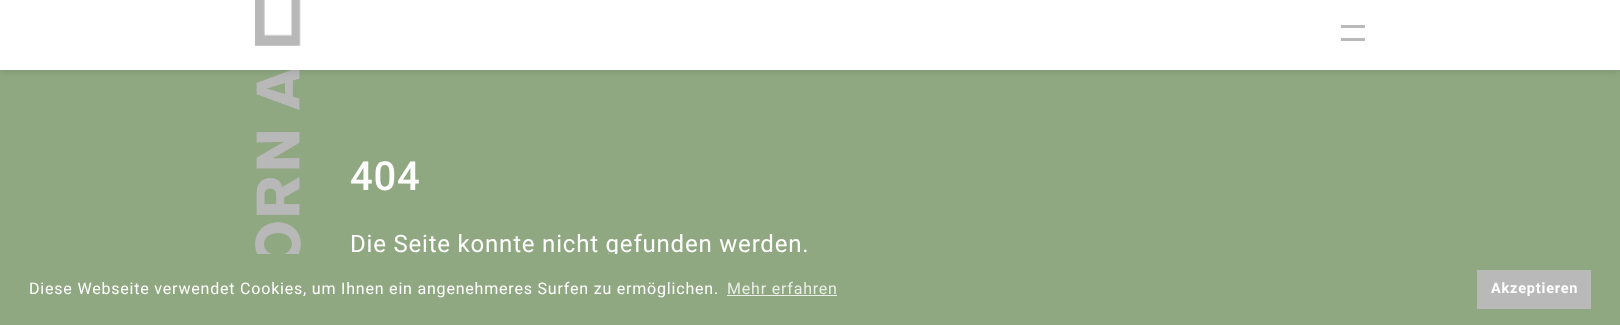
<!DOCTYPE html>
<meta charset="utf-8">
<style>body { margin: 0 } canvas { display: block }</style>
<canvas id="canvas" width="1620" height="325"></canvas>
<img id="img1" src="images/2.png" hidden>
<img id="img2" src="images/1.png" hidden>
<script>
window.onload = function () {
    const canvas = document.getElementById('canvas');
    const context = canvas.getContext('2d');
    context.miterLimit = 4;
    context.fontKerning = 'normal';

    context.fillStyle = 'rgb(143, 168, 129)';
    context.fillRect(0, 0, 1620, 325);
    context.drawImage(document.getElementById('img1'), 255, 70, 46, 184);
    context.fillStyle = 'rgba(0, 0, 0, 0.12)';
    context.filter = 'blur(3.5px)';
    context.beginPath();
    context.rect(0, 1, 1620, 70);
    context.fill();
    context.filter = 'none';
    context.fillStyle = 'rgb(255, 255, 255)';
    context.fillRect(0, 0, 1620, 70);
    context.drawImage(document.getElementById('img2'), 255, 0, 46, 46);
    context.fillStyle = 'rgb(185, 185, 185)';
    context.fillRect(1341, 25, 24, 3);
    context.fillRect(1341, 38, 24, 3);
    context.fillStyle = 'rgb(233, 238, 230)';
    context.fillRect(727, 295, 110, 1);
    context.fillStyle = 'rgb(185, 185, 185)';
    context.fillRect(1477, 270, 114, 39);
    context.letterSpacing = '0.8px';
    context.font = '500 40px Roboto';
    context.fillStyle = 'rgb(255, 255, 255)';
    context.fillText('404', 350, 190);
    context.font = '24px Roboto';
    context.fillText('Die Seite konnte nicht gefunden werden.', 350, 252);
    context.fillStyle = 'rgb(143, 168, 129)';
    context.fillRect(607, 254, 10, 3);
    context.font = '16px Roboto';
    context.fillStyle = 'rgb(255, 255, 255)';
    context.fillText('Diese Webseite verwendet Cookies, um Ihnen ein angenehmeres Surfen zu ermöglichen.', 29, 294);
    context.fillStyle = 'rgb(233, 238, 230)';
    context.fillText('Mehr erfahren', 727, 294);
    context.font = 'bold 14.5px Roboto';
    context.fillStyle = 'rgb(255, 255, 255)';
    context.fillText('Akzeptieren', 1491, 293);
};
</script>
